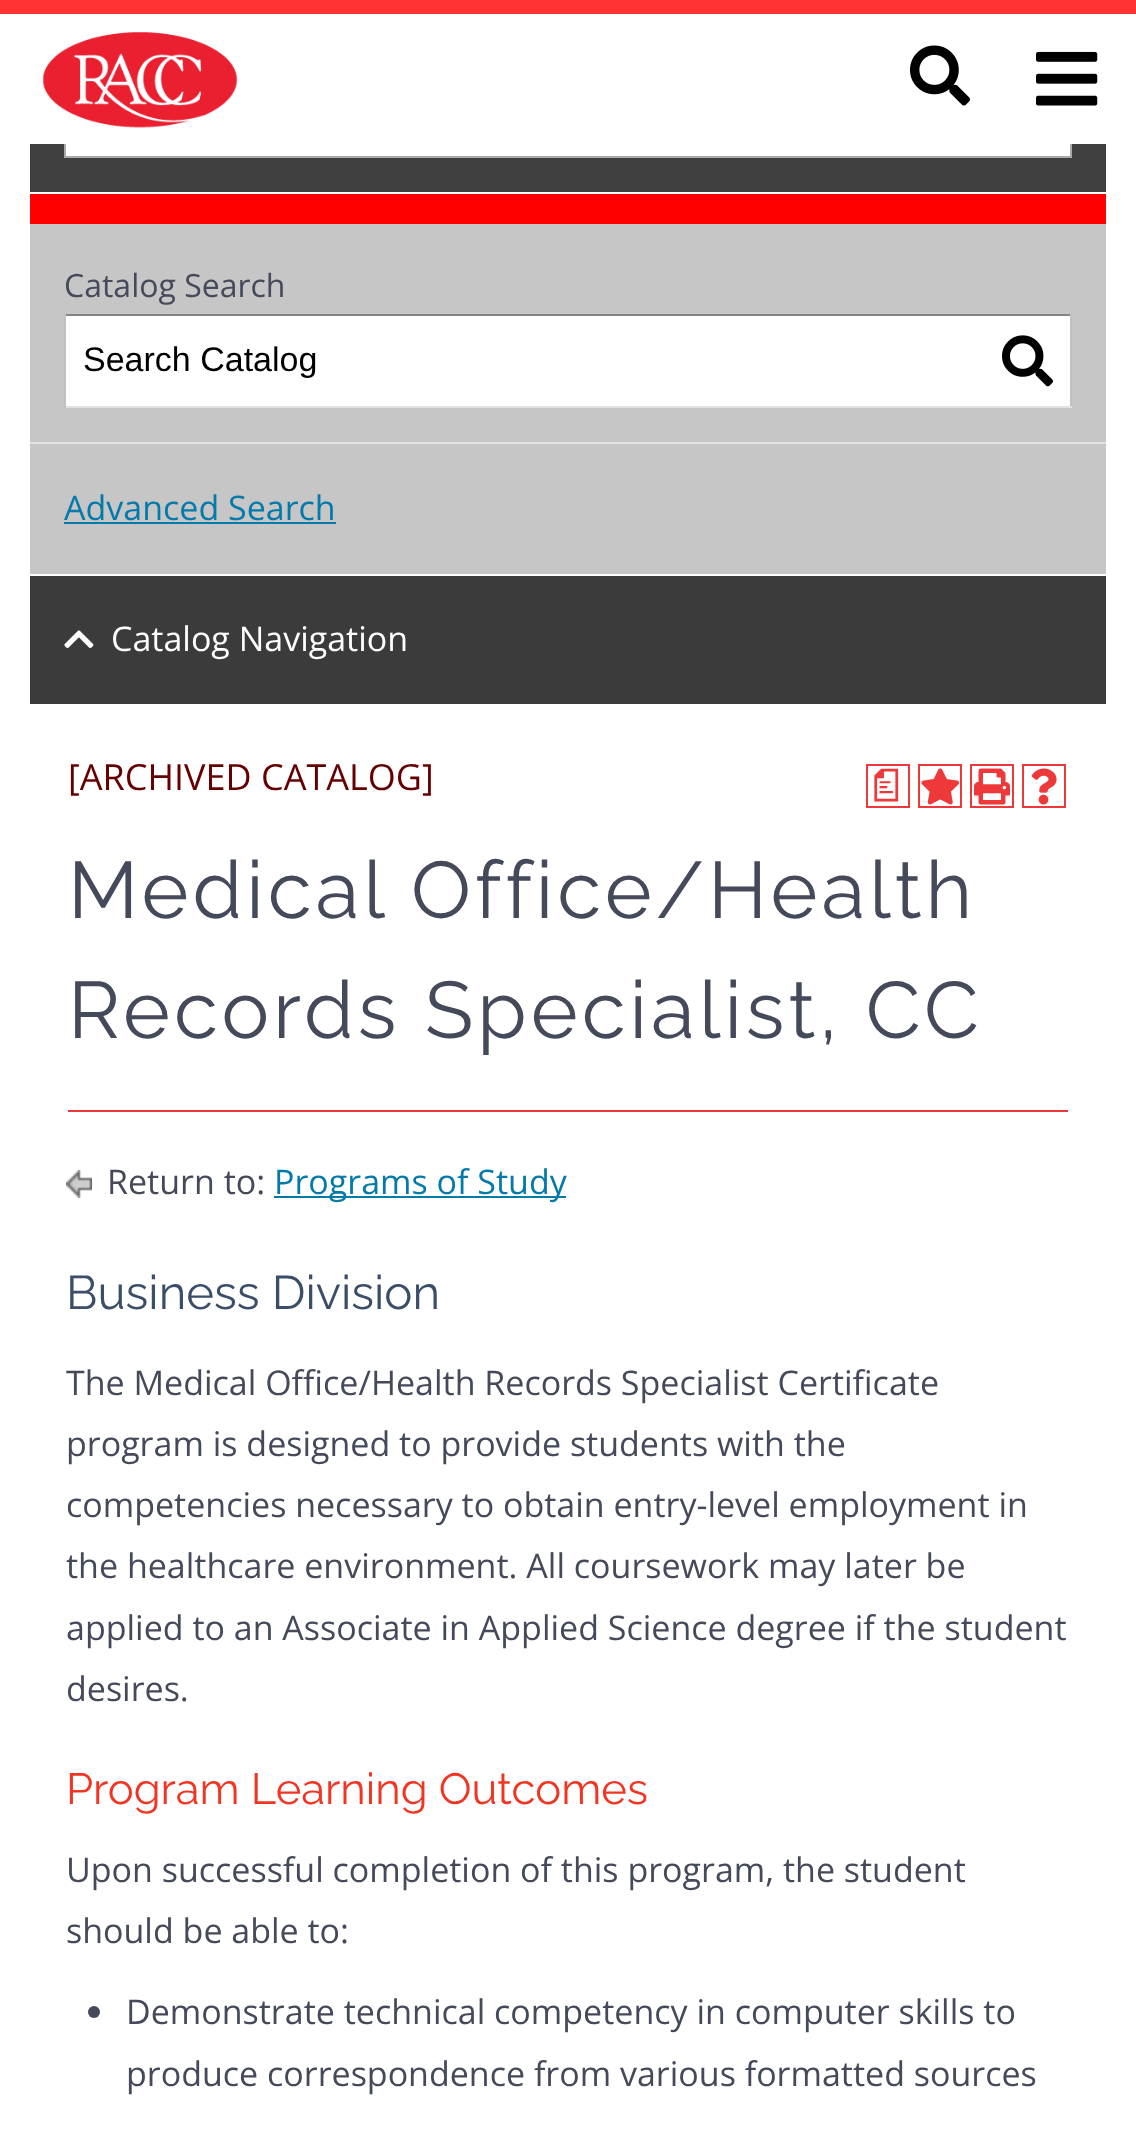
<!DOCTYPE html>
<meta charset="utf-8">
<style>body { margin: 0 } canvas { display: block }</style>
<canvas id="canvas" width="1136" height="2136"></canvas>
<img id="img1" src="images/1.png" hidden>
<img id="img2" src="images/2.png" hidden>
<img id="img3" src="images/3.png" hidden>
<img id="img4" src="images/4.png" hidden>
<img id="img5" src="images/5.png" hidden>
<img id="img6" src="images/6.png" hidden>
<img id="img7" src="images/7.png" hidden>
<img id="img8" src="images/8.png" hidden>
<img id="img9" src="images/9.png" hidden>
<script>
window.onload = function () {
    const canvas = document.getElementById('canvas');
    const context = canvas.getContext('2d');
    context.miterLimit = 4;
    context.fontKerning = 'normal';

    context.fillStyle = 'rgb(255, 255, 255)';
    context.fillRect(0, 0, 1136, 2136);
    context.fillStyle = 'rgb(64, 64, 64)';
    context.fillRect(30, 144, 1076, 48);
    context.fillStyle = 'rgb(255, 255, 255)';
    context.fillRect(66, 144, 1004, 12);
    context.strokeStyle = 'rgb(170, 170, 170)';
    context.lineWidth = 2;
    context.strokeRect(65, 73, 1006, 84);
    context.fillRect(64, 72, 1008, 72);
    context.fillStyle = 'rgb(255, 51, 51)';
    context.fillRect(0, 0, 1136, 14);
    context.drawImage(document.getElementById('img1'), 42, 32, 196, 96);
    context.drawImage(document.getElementById('img2'), 910, 45, 60, 61);
    context.drawImage(document.getElementById('img3'), 1036, 51, 62, 55);
    context.fillStyle = 'rgb(255, 0, 0)';
    context.fillRect(30, 194, 1076, 30);
    context.fillStyle = 'rgb(198, 198, 198)';
    context.fillRect(30, 224, 1076, 350);
    context.fillStyle = 'rgb(255, 255, 255)';
    context.fillRect(66, 316, 1004, 90);
    context.fillStyle = 'rgb(132, 132, 132)';
    context.fillRect(64, 314, 1008, 2);
    context.fillStyle = 'rgb(193, 193, 193)';
    context.fillRect(1070, 314, 2, 94);
    context.fillStyle = 'rgb(225, 225, 225)';
    context.fillRect(64, 406, 1008, 2);
    context.fillStyle = 'rgb(193, 193, 193)';
    context.fillRect(64, 314, 2, 94);
    context.drawImage(document.getElementById('img4'), 1002, 335, 51, 52);
    context.fillStyle = 'rgb(227, 227, 227)';
    context.fillRect(30, 442, 1076, 2);
    context.fillStyle = 'rgb(4, 122, 171)';
    context.fillRect(64, 522, 272, 2);
    context.fillStyle = 'rgb(59, 59, 59)';
    context.fillRect(30, 576, 1076, 128);
    context.drawImage(document.getElementById('img5'), 64, 630, 30, 18);
    context.strokeStyle = 'rgb(238, 56, 58)';
    context.strokeRect(867, 765, 42, 42);
    context.strokeRect(919, 765, 42, 42);
    context.drawImage(document.getElementById('img6'), 921, 768, 39, 37);
    context.strokeRect(971, 765, 42, 42);
    context.drawImage(document.getElementById('img7'), 974, 768, 36, 37);
    context.strokeRect(1023, 765, 42, 42);
    context.drawImage(document.getElementById('img8'), 1031, 768, 26, 37);
    context.fillStyle = 'rgb(238, 56, 58)';
    context.fillRect(68, 1110, 1000, 2);
    context.drawImage(document.getElementById('img9'), 66, 1170, 26, 28);
    context.fillStyle = 'rgb(4, 122, 171)';
    context.fillRect(274, 1196, 292, 2);
    context.fillStyle = 'rgb(68, 74, 90)';
    context.beginPath();
    context.arc(94, 2012, 6, 0, 2 * Math.PI);
    context.fill();
    context.font = '32px Open Sans';
    context.fillText('Catalog Search', 64, 297);
    context.font = '34px Liberation Sans';
    context.fillStyle = 'rgb(0, 0, 0)';
    context.fillText('Search Catalog', 83, 371);
    context.font = '34px Open Sans';
    context.fillStyle = 'rgb(4, 122, 171)';
    context.fillText('Advanced Search', 64, 520);
    context.fillStyle = 'rgb(255, 255, 255)';
    context.fillText('Catalog Navigation', 111, 651);
    context.font = '36px Open Sans';
    context.fillStyle = 'rgb(102, 0, 0)';
    context.fillText('[ARCHIVED CATALOG]', 68, 790);
    context.font = '500 36px "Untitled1"';
    context.fillStyle = 'rgb(238, 56, 58)';
    context.fillText('a', 868, 796);
    context.letterSpacing = '4px';
    context.font = '80px Raleway';
    context.fillStyle = 'rgb(68, 74, 90)';
    context.fillText('Medical Office/Health', 68, 918);
    context.fillText('Records Specialist, CC', 68, 1038);
    context.letterSpacing = '0px';
    context.font = '34px Open Sans';
    context.fillText('Return to:', 107, 1194);
    context.fillStyle = 'rgb(4, 122, 171)';
    context.fillText('Programs of Study', 274, 1194);
    context.font = '47.25px Raleway';
    context.fillStyle = 'rgb(58, 77, 105)';
    context.fillText('Business Division', 66, 1309);
    context.font = '34px Open Sans';
    context.fillStyle = 'rgb(68, 74, 90)';
    context.fillText('The Medical Office/Health Records Specialist Certificate', 66, 1395);
    context.fillText('program is designed to provide students with the', 66, 1456);
    context.fillText('competencies necessary to obtain entry-level employment in', 66, 1517);
    context.fillText('the healthcare environment. All coursework may later be', 66, 1578);
    context.fillText('applied to an Associate in Applied Science degree if the student', 66, 1640);
    context.fillText('desires.', 66, 1701);
    context.font = '43.6px Raleway';
    context.fillStyle = 'rgb(242, 53, 34)';
    context.fillText('Program Learning Outcomes', 66, 1804);
    context.font = '34px Open Sans';
    context.fillStyle = 'rgb(68, 74, 90)';
    context.fillText('Upon successful completion of this program, the student', 66, 1882);
    context.fillText('should be able to:', 66, 1943);
    context.fillText('Demonstrate technical competency in computer skills to', 126, 2024);
    context.fillText('produce correspondence from various formatted sources', 126, 2086);
};
</script>
